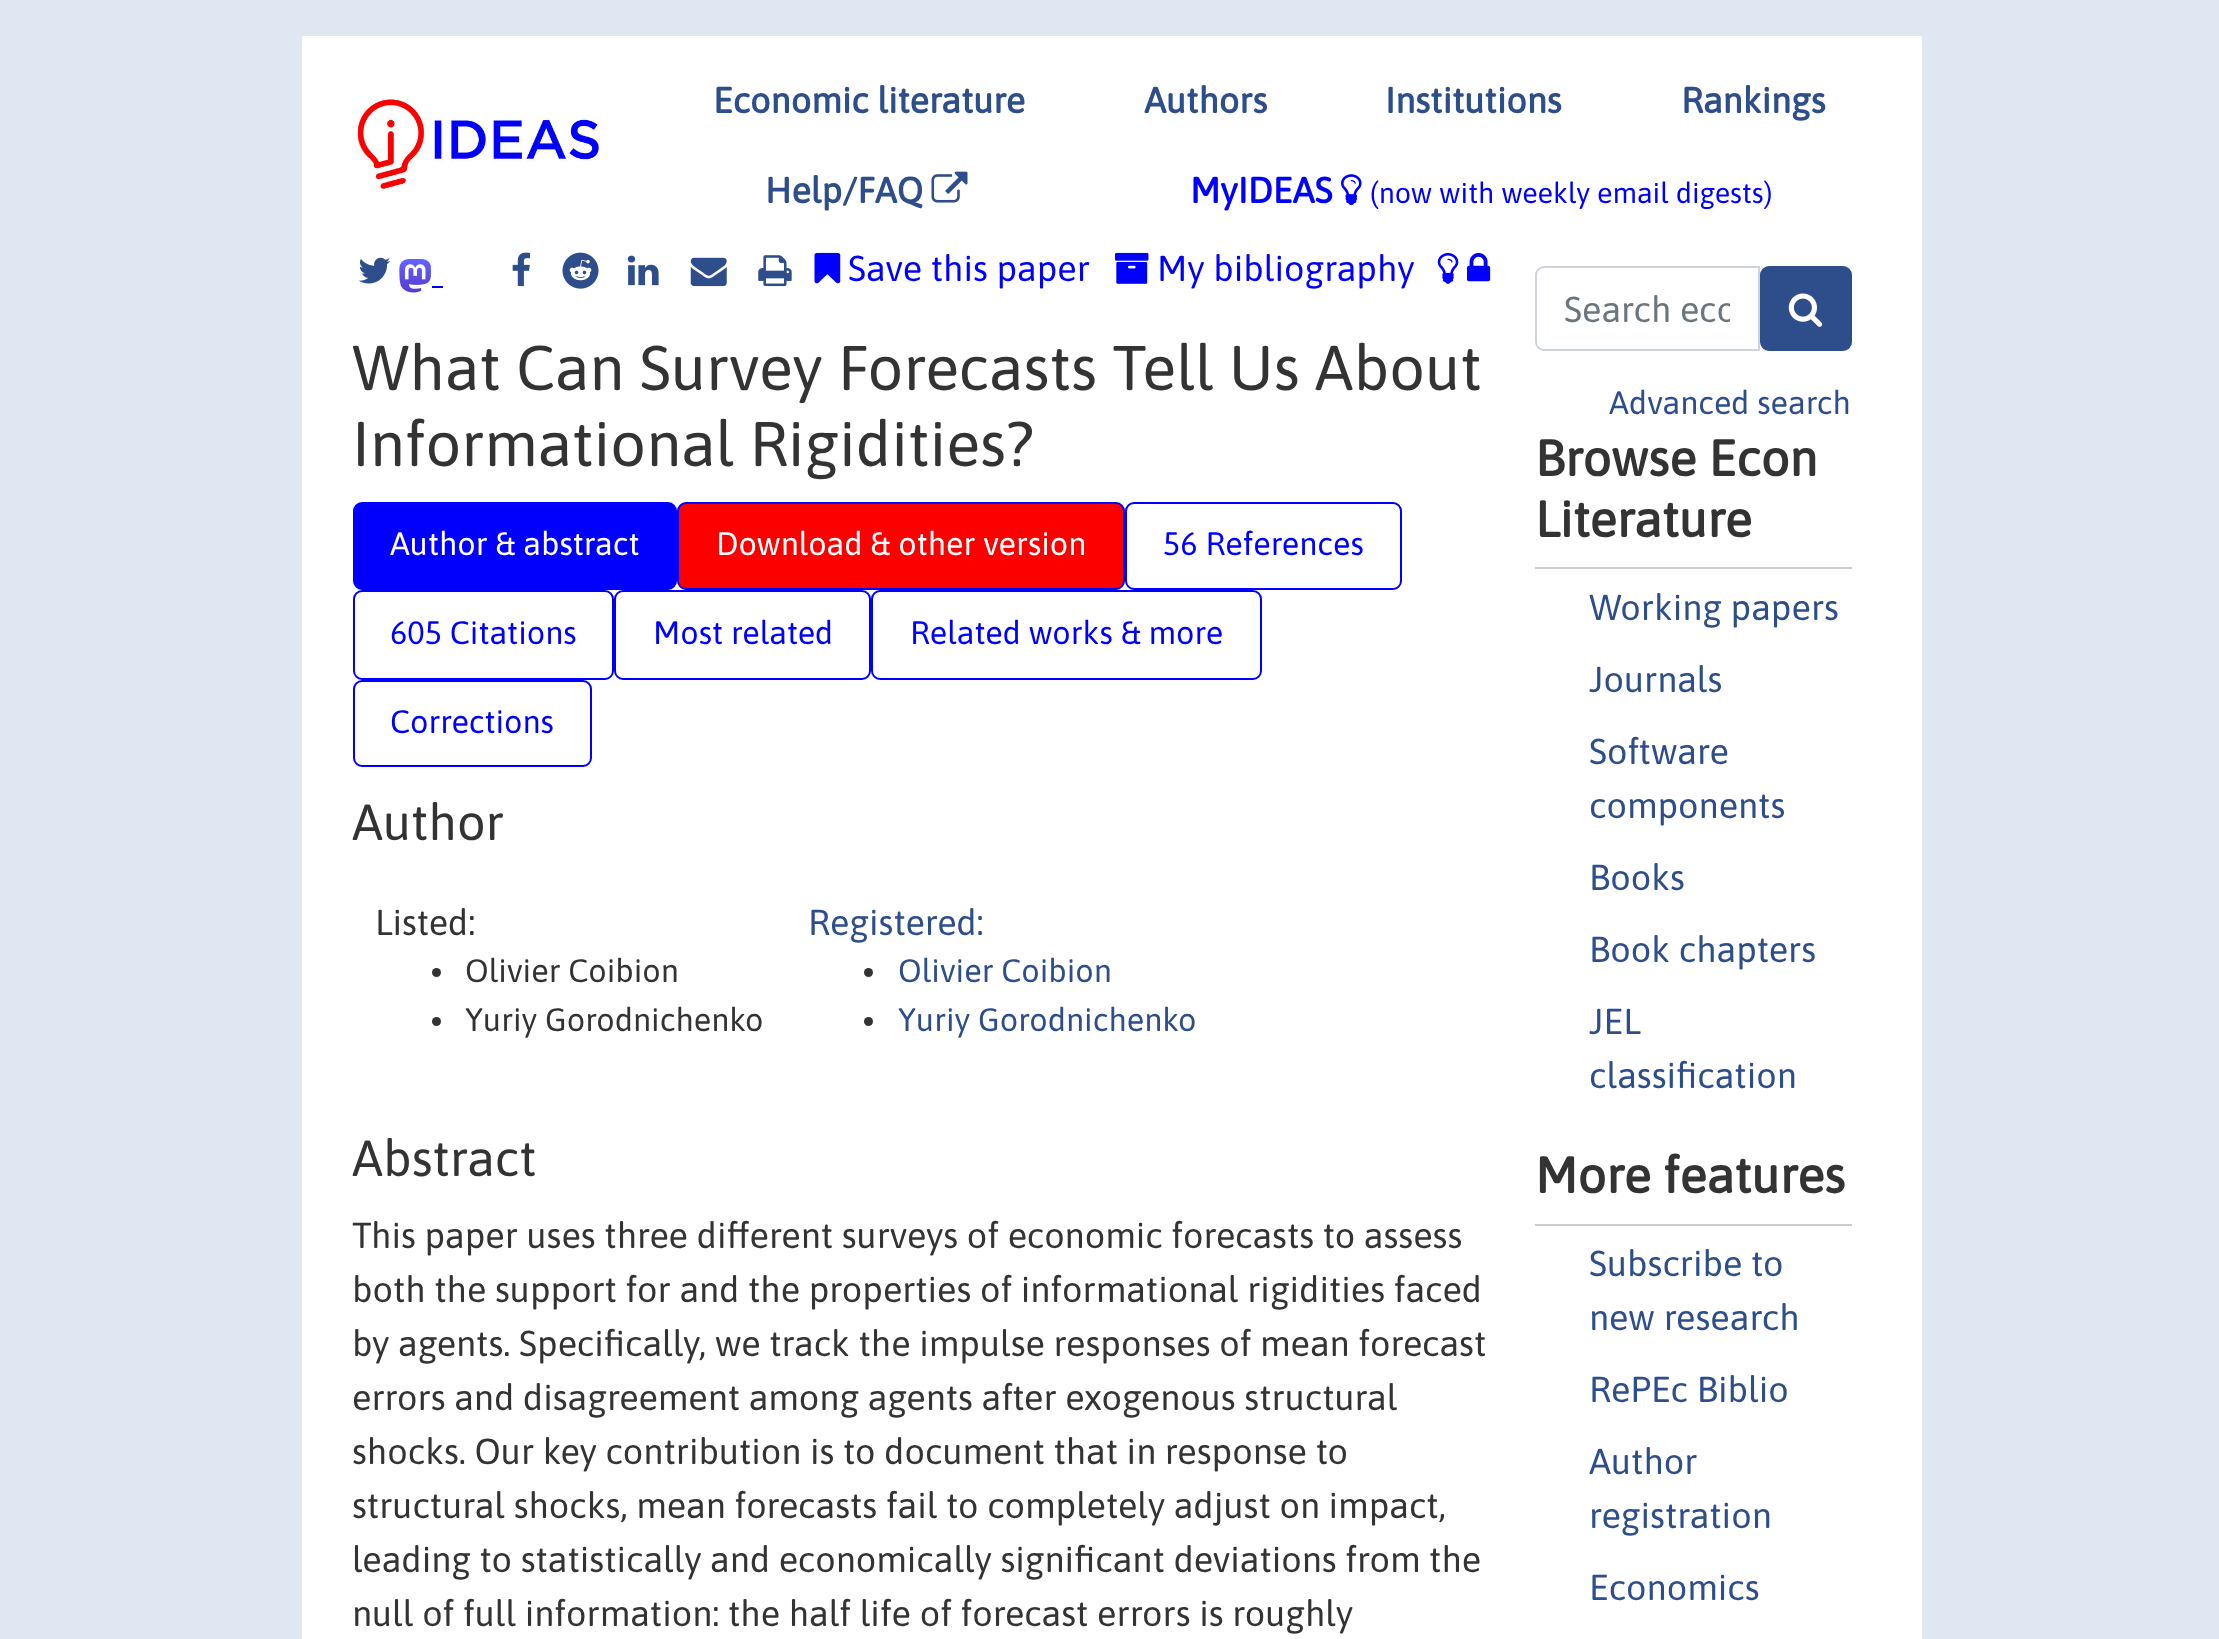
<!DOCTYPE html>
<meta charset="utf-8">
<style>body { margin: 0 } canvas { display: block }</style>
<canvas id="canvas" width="2219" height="1639"></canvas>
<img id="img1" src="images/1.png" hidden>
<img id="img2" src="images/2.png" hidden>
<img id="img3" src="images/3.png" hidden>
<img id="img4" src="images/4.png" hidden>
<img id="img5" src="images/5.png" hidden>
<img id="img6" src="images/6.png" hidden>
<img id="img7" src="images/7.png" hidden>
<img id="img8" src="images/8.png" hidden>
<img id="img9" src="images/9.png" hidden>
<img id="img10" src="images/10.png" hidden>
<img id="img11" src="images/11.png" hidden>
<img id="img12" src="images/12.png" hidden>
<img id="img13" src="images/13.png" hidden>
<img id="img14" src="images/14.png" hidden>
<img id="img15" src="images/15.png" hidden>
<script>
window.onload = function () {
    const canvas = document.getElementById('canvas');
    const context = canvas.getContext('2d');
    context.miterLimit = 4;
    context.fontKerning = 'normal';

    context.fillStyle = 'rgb(223, 231, 242)';
    context.fillRect(0, 0, 2219, 1639);
    context.fillStyle = 'rgb(255, 255, 255)';
    context.fillRect(302, 36, 1620, 1603);
    context.drawImage(document.getElementById('img1'), 355, 99, 247, 91);
    context.drawImage(document.getElementById('img2'), 931, 171, 37, 32);
    context.drawImage(document.getElementById('img3'), 1341, 174, 21, 32);
    context.drawImage(document.getElementById('img4'), 358, 257, 32, 27);
    context.drawImage(document.getElementById('img5'), 399, 259, 32, 34);
    context.fillStyle = 'rgb(0, 0, 255)';
    context.fillRect(432, 286, 11, 2);
    context.drawImage(document.getElementById('img6'), 512, 252, 18, 35);
    context.drawImage(document.getElementById('img7'), 562, 252, 37, 37);
    context.drawImage(document.getElementById('img8'), 627, 255, 32, 31);
    context.drawImage(document.getElementById('img9'), 690, 257, 37, 30);
    context.drawImage(document.getElementById('img10'), 758, 255, 34, 32);
    context.drawImage(document.getElementById('img11'), 814, 252, 27, 32);
    context.drawImage(document.getElementById('img12'), 1115, 252, 34, 32);
    context.drawImage(document.getElementById('img13'), 1437, 253, 22, 31);
    context.drawImage(document.getElementById('img14'), 1467, 253, 24, 29);
    context.fillStyle = 'rgb(0, 0, 252)';
    context.beginPath();
    context.roundRect(354, 503, 322, 86, 8);
    context.fill();
    context.strokeStyle = 'rgb(0, 0, 252)';
    context.lineWidth = 2;
    context.stroke();
    context.fillStyle = 'rgb(252, 0, 0)';
    context.beginPath();
    context.roundRect(678, 503, 446, 86, 8);
    context.fill();
    context.stroke();
    context.beginPath();
    context.roundRect(1126, 503, 275, 86, 8);
    context.stroke();
    context.beginPath();
    context.roundRect(354, 591, 259, 88, 8);
    context.stroke();
    context.beginPath();
    context.roundRect(615, 591, 255, 88, 8);
    context.stroke();
    context.beginPath();
    context.roundRect(872, 591, 389, 88, 8);
    context.stroke();
    context.beginPath();
    context.roundRect(354, 681, 237, 85, 8);
    context.stroke();
    context.fillStyle = 'rgb(51, 51, 51)';
    context.beginPath();
    context.arc(436.5, 972.5, 4.5, 0, 2 * Math.PI);
    context.fill();
    context.beginPath();
    context.arc(436.5, 1021.5, 4.5, 0, 2 * Math.PI);
    context.fill();
    context.beginPath();
    context.arc(868.5, 972.5, 4.5, 0, 2 * Math.PI);
    context.fill();
    context.beginPath();
    context.arc(868.5, 1021.5, 4.5, 0, 2 * Math.PI);
    context.fill();
    context.beginPath();
    context.roundRect(1536, 267, 223, 83, [8, 0, 0, 8]);
    context.strokeStyle = 'rgb(206, 212, 218)';
    context.stroke();
    context.fillStyle = 'rgb(45, 78, 139)';
    context.beginPath();
    context.roundRect(1760, 266, 92, 85, 9);
    context.fill();
    context.drawImage(document.getElementById('img15'), 1788, 293, 35, 34);
    context.fillStyle = 'rgb(204, 204, 204)';
    context.fillRect(1535, 567, 317, 2);
    context.fillRect(1535, 1224, 317, 2);
    context.font = 'bold 36px Asap';
    context.fillStyle = 'rgb(45, 78, 139)';
    context.fillText('Economic literature', 713, 113);
    context.fillText('Authors', 1144, 113);
    context.fillText('Institutions', 1385, 113);
    context.fillText('Rankings', 1681, 113);
    context.fillText('Help/FAQ', 765, 203);
    context.fillStyle = 'rgb(0, 0, 255)';
    context.fillText('MyIDEAS', 1190, 203);
    context.font = '28.75px Asap';
    context.fillText('(now with weekly email digests)', 1370, 203);
    context.font = '36px Asap';
    context.fillText('Save this paper', 848, 281);
    context.fillText('My bibliography', 1157, 281);
    context.font = '63px Asap';
    context.fillStyle = 'rgb(51, 51, 51)';
    context.fillText('What Can Survey Forecasts Tell Us About', 352, 390);
    context.fillText('Informational Rigidities?', 352, 466);
    context.font = '32.4px Asap';
    context.fillStyle = 'rgb(255, 255, 255)';
    context.fillText('Author & abstract', 390, 555);
    context.fillText('Download & other version', 716, 555);
    context.fillStyle = 'rgb(0, 0, 255)';
    context.fillText('56 References', 1163, 555);
    context.fillText('605 Citations', 390, 644);
    context.fillText('Most related', 653, 644);
    context.fillText('Related works & more', 910, 644);
    context.fillText('Corrections', 390, 733);
    context.font = '50.5px Asap';
    context.fillStyle = 'rgb(51, 51, 51)';
    context.fillText('Author', 352, 840);
    context.font = '36px Asap';
    context.fillText('Listed:', 375, 935);
    context.font = '32.4px Asap';
    context.fillText('Olivier Coibion', 465, 982);
    context.fillText('Yuriy Gorodnichenko', 465, 1031);
    context.font = '36px Asap';
    context.fillStyle = 'rgb(45, 78, 139)';
    context.fillText('Registered:', 808, 935);
    context.font = '32.4px Asap';
    context.fillText('Olivier Coibion', 898, 982);
    context.fillText('Yuriy Gorodnichenko', 898, 1031);
    context.font = '50.5px Asap';
    context.fillStyle = 'rgb(51, 51, 51)';
    context.fillText('Abstract', 352, 1176);
    context.font = '36px Asap';
    context.fillText('This paper uses three different surveys of economic forecasts to assess', 352, 1248);
    context.fillText('both the support for and the properties of informational rigidities faced', 352, 1302);
    context.fillText('by agents. Specifically, we track the impulse responses of mean forecast', 352, 1356);
    context.fillText('errors and disagreement among agents after exogenous structural', 352, 1410);
    context.fillText('shocks. Our key contribution is to document that in response to', 352, 1464);
    context.fillText('structural shocks, mean forecasts fail to completely adjust on impact,', 352, 1518);
    context.fillText('leading to statistically and economically significant deviations from the', 352, 1572);
    context.fillText('null of full information: the half life of forecast errors is roughly', 352, 1626);
    context.save();
    context.beginPath();
    context.rect(1564, 288, 166, 41);
    context.clip();
    context.fillStyle = 'rgb(108, 117, 125)';
    context.fillText('Search eco', 1564, 322);
    context.restore();
    context.font = '32.4px Asap';
    context.fillStyle = 'rgb(45, 78, 139)';
    context.fillText('Advanced search', 1609, 414);
    context.font = 'bold 50.5px Asap';
    context.fillStyle = 'rgb(51, 51, 51)';
    context.fillText('Browse Econ', 1535, 476);
    context.fillText('Literature', 1535, 537);
    context.font = '36px Asap';
    context.fillStyle = 'rgb(45, 78, 139)';
    context.fillText('Working papers', 1589, 620);
    context.fillText('Journals', 1589, 692);
    context.fillText('Software', 1589, 764);
    context.fillText('components', 1589, 818);
    context.fillText('Books', 1589, 890);
    context.fillText('Book chapters', 1589, 962);
    context.fillText('JEL', 1589, 1034);
    context.fillText('classification', 1589, 1088);
    context.font = 'bold 50.5px Asap';
    context.fillStyle = 'rgb(51, 51, 51)';
    context.fillText('More features', 1535, 1193);
    context.font = '36px Asap';
    context.fillStyle = 'rgb(45, 78, 139)';
    context.fillText('Subscribe to', 1589, 1276);
    context.fillText('new research', 1589, 1330);
    context.fillText('RePEc Biblio', 1589, 1402);
    context.fillText('Author', 1589, 1474);
    context.fillText('registration', 1589, 1528);
    context.fillText('Economics', 1589, 1600);
};
</script>
